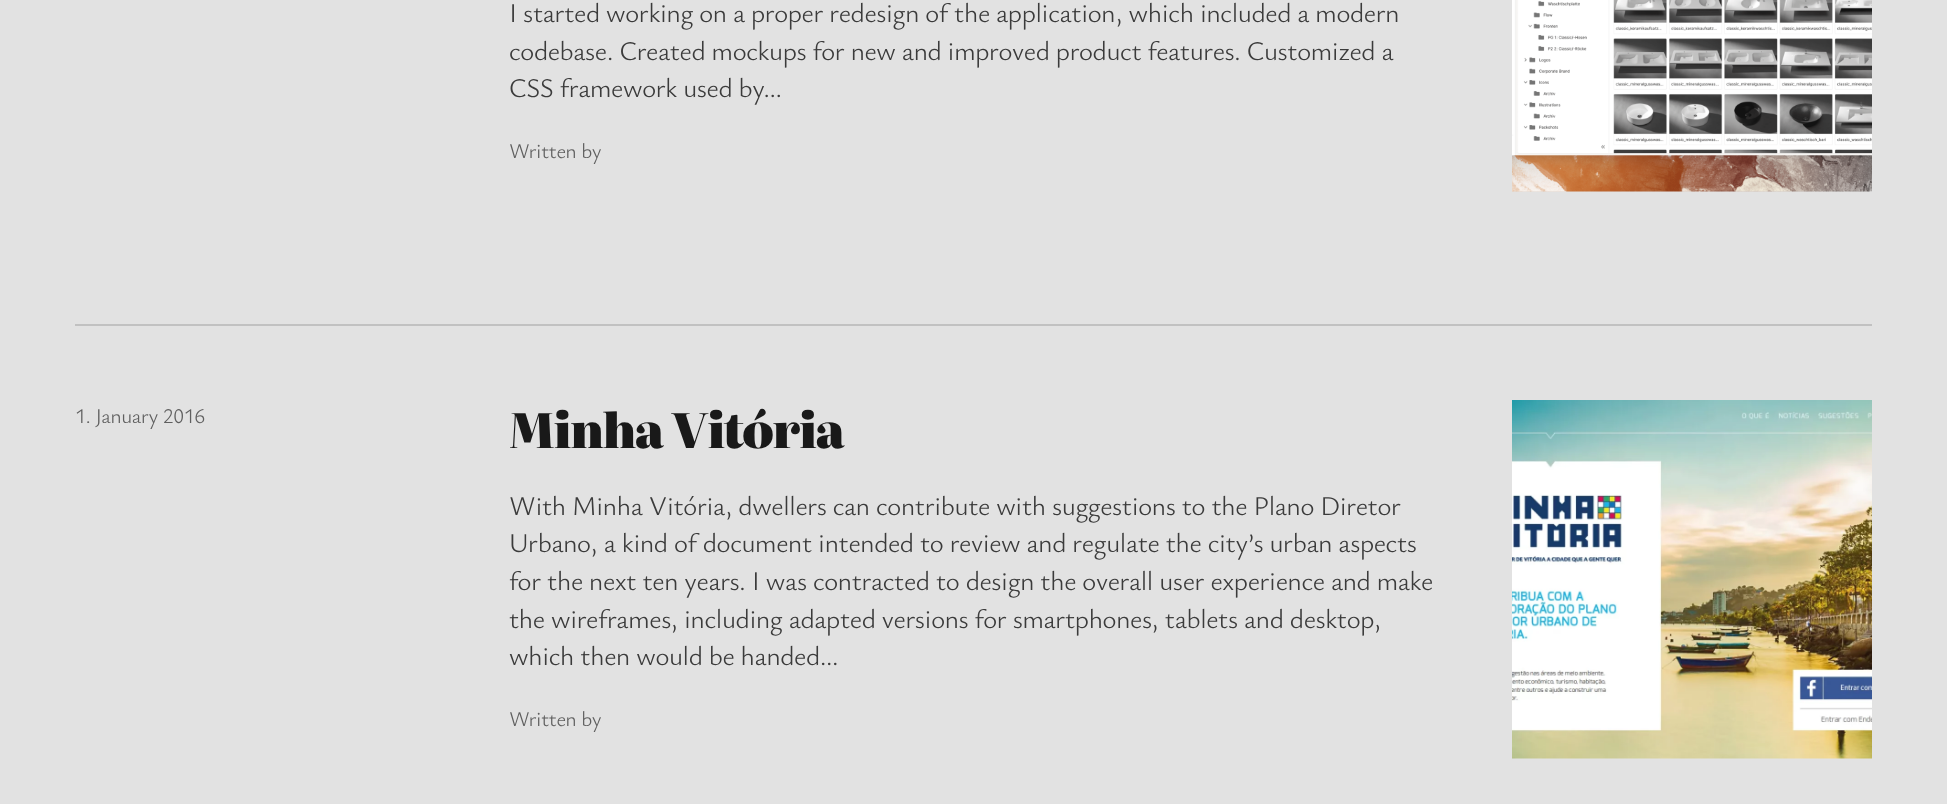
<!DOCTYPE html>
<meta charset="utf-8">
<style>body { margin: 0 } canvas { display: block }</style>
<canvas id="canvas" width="1947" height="804"></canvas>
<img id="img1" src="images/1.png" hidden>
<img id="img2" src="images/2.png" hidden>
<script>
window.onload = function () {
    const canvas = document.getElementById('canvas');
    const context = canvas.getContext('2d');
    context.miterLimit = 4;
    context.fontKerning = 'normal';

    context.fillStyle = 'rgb(226, 226, 226)';
    context.fillRect(0, 0, 1947, 804);
    context.drawImage(document.getElementById('img1'), 1512, 0, 360, 192);
    context.fillStyle = 'rgb(193, 193, 193)';
    context.fillRect(75, 324, 1797, 2);
    context.drawImage(document.getElementById('img2'), 1512, 400, 360, 359);
    context.letterSpacing = '-0.35px';
    context.font = '300 26.9px Ysabeau Office';
    context.fillStyle = 'rgb(59, 59, 59)';
    context.fillText('I started working on a proper redesign of the application, which included a modern', 509, 22);
    context.fillText('codebase. Created mockups for new and improved product features. Customized a', 509, 60);
    context.fillText('CSS framework used by…', 509, 97);
    context.font = '300 21px Ysabeau Office';
    context.fillStyle = 'rgb(95, 95, 95)';
    context.fillText('Written by', 509, 158);
    context.fillText('1. January 2016', 75, 423);
    context.letterSpacing = '-1.5px';
    context.font = '900 47.75px Literata';
    context.fillStyle = 'rgb(25, 25, 25)';
    context.fillText('Minha Vitória', 509, 448);
    context.letterSpacing = '-0.35px';
    context.font = '300 26.9px Ysabeau Office';
    context.fillStyle = 'rgb(59, 59, 59)';
    context.fillText('With Minha Vitória, dwellers can contribute with suggestions to the Plano Diretor', 509, 515);
    context.fillText('Urbano, a kind of document intended to review and regulate the city’s urban aspects', 509, 552);
    context.fillText('for the next ten years. I was contracted to design the overall user experience and make', 509, 590);
    context.fillText('the wireframes, including adapted versions for smartphones, tablets and desktop,', 509, 628);
    context.fillText('which then would be handed…', 509, 665);
    context.font = '300 21px Ysabeau Office';
    context.fillStyle = 'rgb(95, 95, 95)';
    context.fillText('Written by', 509, 726);
};
</script>
